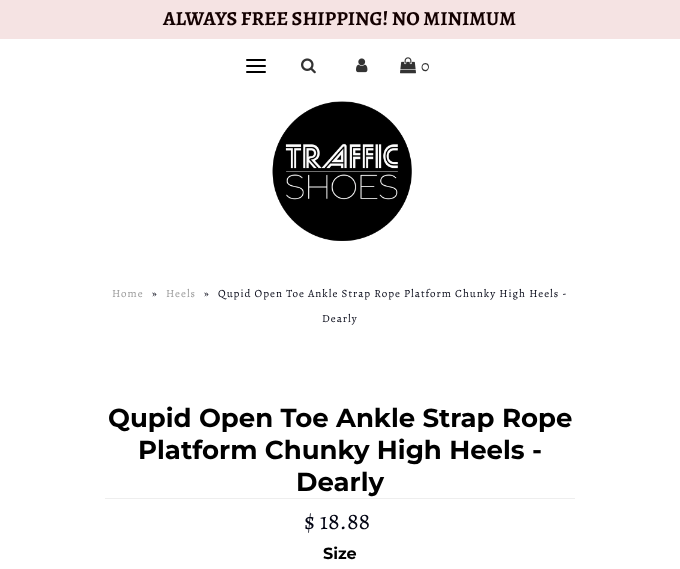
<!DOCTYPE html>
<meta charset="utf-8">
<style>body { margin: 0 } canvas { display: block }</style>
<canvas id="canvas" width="680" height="569"></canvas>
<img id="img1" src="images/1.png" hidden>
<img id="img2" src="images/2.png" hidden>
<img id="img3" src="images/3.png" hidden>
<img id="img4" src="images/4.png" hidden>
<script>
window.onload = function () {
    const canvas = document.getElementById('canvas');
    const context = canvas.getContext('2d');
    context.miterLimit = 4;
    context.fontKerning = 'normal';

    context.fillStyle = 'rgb(255, 255, 255)';
    context.fillRect(0, 0, 680, 569);
    context.fillStyle = 'rgb(245, 227, 227)';
    context.fillRect(0, 0, 680, 39);
    context.fillStyle = 'rgb(0, 0, 0)';
    context.beginPath();
    context.roundRect(246, 65, 20, 2, 1);
    context.fill();
    context.beginPath();
    context.roundRect(246, 59, 20, 2, 1);
    context.fill();
    context.beginPath();
    context.roundRect(246, 71, 20, 2, 1);
    context.fill();
    context.drawImage(document.getElementById('img1'), 301, 58, 15, 16);
    context.drawImage(document.getElementById('img2'), 356, 58, 12, 15);
    context.drawImage(document.getElementById('img3'), 400, 57, 16, 17);
    context.drawImage(document.getElementById('img4'), 272, 101, 140, 140);
    context.fillStyle = 'rgb(238, 238, 238)';
    context.fillRect(105, 498, 470, 1);
    context.font = 'bold 20px Alegreya';
    context.fillStyle = 'rgb(20, 1, 1)';
    context.fillText('ALWAYS FREE SHIPPING! NO MINIMUM', 163, 25);
    context.font = '16px Alegreya';
    context.fillStyle = 'rgb(51, 51, 51)';
    context.fillText('0', 421, 71);
    context.letterSpacing = '1px';
    context.font = '11px Alegreya';
    context.fillStyle = 'rgb(153, 153, 153)';
    context.fillText('Home', 112, 297);
    context.fillStyle = 'rgb(2, 4, 19)';
    context.fillText('»', 152, 297);
    context.fillStyle = 'rgb(153, 153, 153)';
    context.fillText('Heels', 166, 297);
    context.fillStyle = 'rgb(2, 4, 19)';
    context.fillText('»', 204, 297);
    context.fillText('Qupid Open Toe Ankle Strap Rope Platform Chunky High Heels -', 218, 297);
    context.fillText('Dearly', 322, 322);
    context.letterSpacing = '0px';
    context.font = 'bold 26px Montserrat';
    context.fillStyle = 'rgb(0, 0, 0)';
    context.fillText('Qupid Open Toe Ankle Strap Rope', 108, 427);
    context.fillText('Platform Chunky High Heels -', 138, 459);
    context.fillText('Dearly', 296, 491);
    context.font = '24px Alegreya';
    context.fillStyle = 'rgb(2, 4, 19)';
    context.fillText('$ 18.88', 304, 529);
    context.font = 'bold 16px Montserrat';
    context.fillStyle = 'rgb(0, 0, 0)';
    context.fillText('Size', 323, 559);
};
</script>
